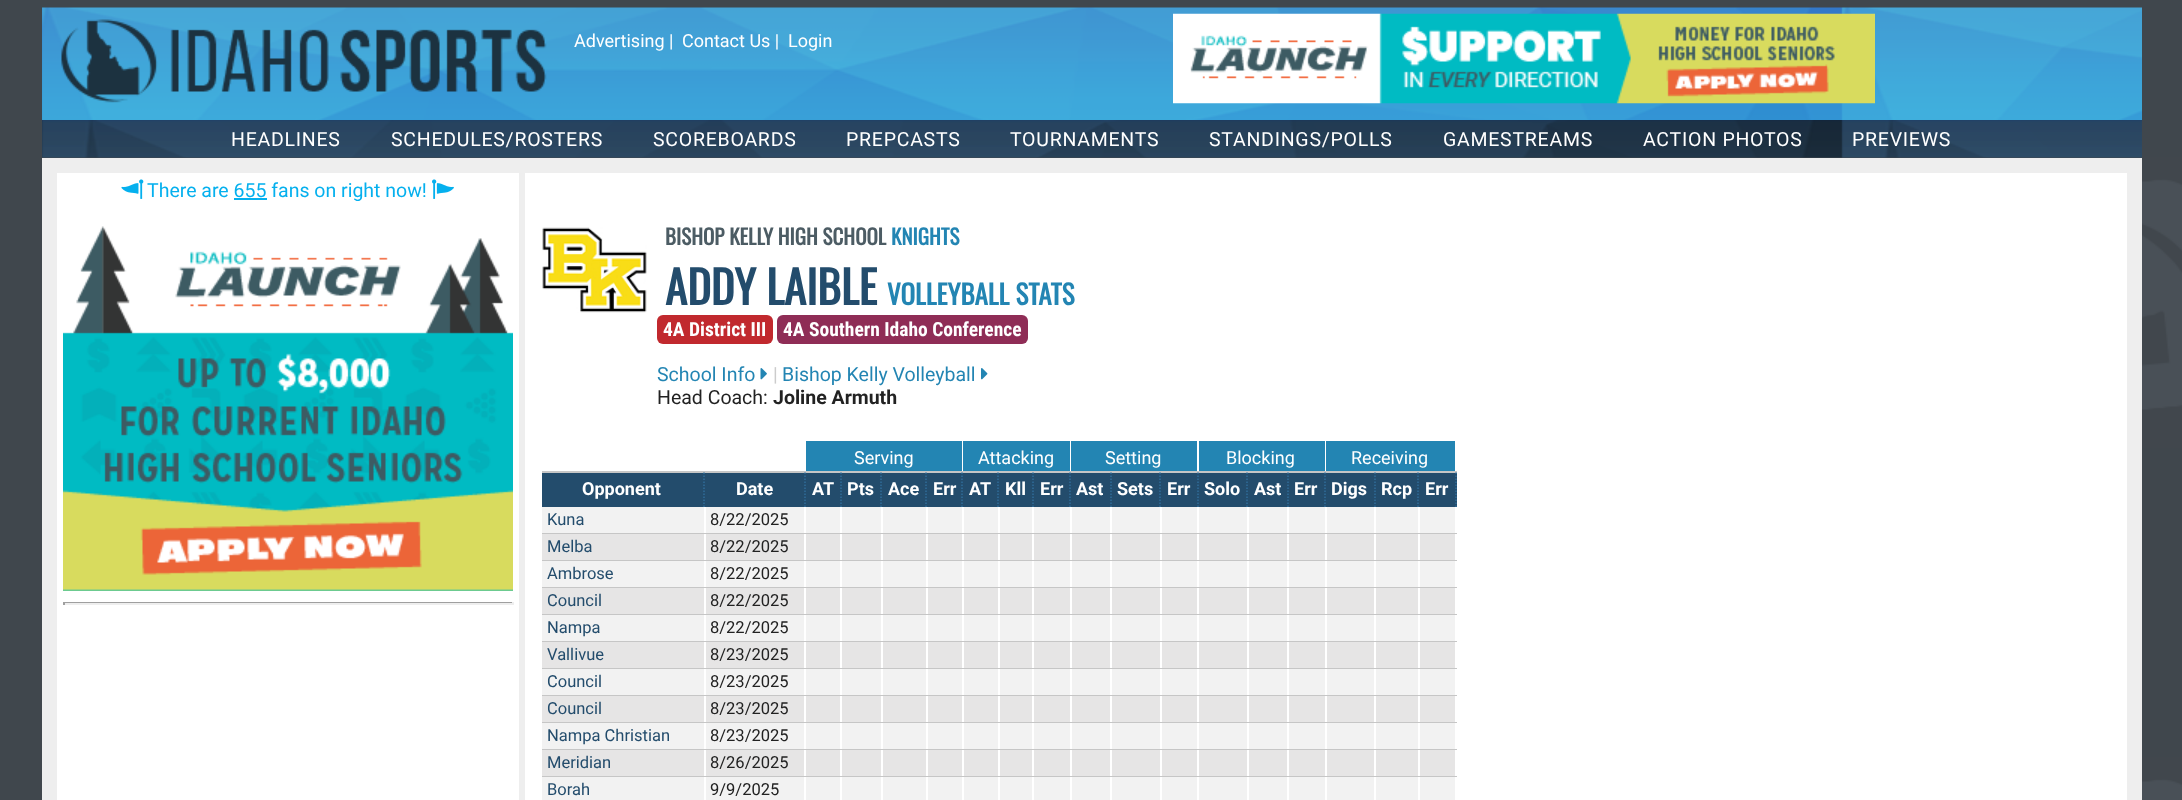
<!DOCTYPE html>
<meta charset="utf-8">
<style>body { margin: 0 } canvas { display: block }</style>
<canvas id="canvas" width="2182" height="800"></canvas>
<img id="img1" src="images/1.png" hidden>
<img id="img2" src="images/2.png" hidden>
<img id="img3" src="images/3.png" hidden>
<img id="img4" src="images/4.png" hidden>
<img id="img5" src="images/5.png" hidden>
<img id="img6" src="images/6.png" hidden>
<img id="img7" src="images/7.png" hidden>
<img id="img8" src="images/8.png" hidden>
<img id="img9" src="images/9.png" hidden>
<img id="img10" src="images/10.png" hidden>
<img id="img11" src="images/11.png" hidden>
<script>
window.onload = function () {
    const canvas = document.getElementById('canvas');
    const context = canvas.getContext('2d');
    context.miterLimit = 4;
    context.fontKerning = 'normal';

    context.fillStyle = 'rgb(255, 255, 255)';
    context.fillRect(0, 0, 2182, 800);
    context.drawImage(document.getElementById('img1'), 0, 0, 2182, 800);
    context.drawImage(document.getElementById('img2'), 42, 7, 2100, 113);
    context.drawImage(document.getElementById('img3'), 61, 19, 486, 84);
    context.drawImage(document.getElementById('img4'), 1173, 13, 702, 91);
    context.drawImage(document.getElementById('img5'), 42, 120, 2100, 38);
    context.fillStyle = 'rgb(238, 238, 238)';
    context.fillRect(42, 158, 2100, 642);
    context.fillStyle = 'rgb(255, 255, 255)';
    context.fillRect(57, 173, 462, 627);
    context.drawImage(document.getElementById('img6'), 121, 179, 23, 20);
    context.drawImage(document.getElementById('img7'), 432, 179, 22, 20);
    context.fillStyle = 'rgb(5, 176, 238)';
    context.fillRect(234, 198, 33, 2);
    context.drawImage(document.getElementById('img8'), 63, 226, 450, 365);
    context.fillStyle = 'rgb(159, 159, 159)';
    context.fillRect(63, 602, 450, 1);
    context.fillStyle = 'rgb(238, 238, 238)';
    context.fillRect(512, 602, 2, 3);
    context.fillRect(63, 603, 450, 2);
    context.fillStyle = 'rgb(159, 159, 159)';
    context.fillRect(63, 602, 2, 3);
    context.fillStyle = 'rgb(255, 255, 255)';
    context.fillRect(525, 173, 1602, 627);
    context.drawImage(document.getElementById('img9'), 542, 227, 105, 86);
    context.fillStyle = 'rgb(193, 41, 46)';
    context.beginPath();
    context.roundRect(657, 315, 116, 29, 6);
    context.fill();
    context.fillStyle = 'rgb(143, 45, 86)';
    context.beginPath();
    context.roundRect(777, 315, 251, 29, 6);
    context.fill();
    context.drawImage(document.getElementById('img10'), 760, 368, 7, 12);
    context.drawImage(document.getElementById('img11'), 981, 368, 7, 12);
    context.fillStyle = 'rgb(35, 133, 179)';
    context.fillRect(806, 441, 156, 30);
    context.fillRect(963, 441, 107, 30);
    context.fillRect(1071, 441, 126, 30);
    context.fillRect(1199, 441, 126, 30);
    context.fillRect(1326, 441, 129, 30);
    context.fillStyle = 'rgb(198, 198, 198)';
    context.fillRect(542, 471, 915, 2);
    context.fillStyle = 'rgb(35, 76, 108)';
    context.fillRect(542, 473, 915, 34);
    context.beginPath();
    context.moveTo(704, 472.5);
    context.lineTo(704, 507);
    context.strokeStyle = 'rgb(49, 108, 153)';
    context.lineWidth = 1.5;
    context.setLineDash([1.5, 1.5]);
    context.stroke();
    context.beginPath();
    context.moveTo(805, 472.5);
    context.lineTo(805, 507);
    context.moveTo(841, 472.5);
    context.lineTo(841, 507);
    context.stroke();
    context.beginPath();
    context.moveTo(881, 472.5);
    context.lineTo(881, 507);
    context.moveTo(926, 472.5);
    context.lineTo(926, 507);
    context.stroke();
    context.beginPath();
    context.moveTo(962, 472.5);
    context.lineTo(962, 507);
    context.moveTo(998, 472.5);
    context.lineTo(998, 507);
    context.stroke();
    context.beginPath();
    context.moveTo(1033, 472.5);
    context.lineTo(1033, 507);
    context.moveTo(1070, 472.5);
    context.lineTo(1070, 507);
    context.stroke();
    context.beginPath();
    context.moveTo(1111, 472.5);
    context.lineTo(1111, 507);
    context.moveTo(1160, 472.5);
    context.lineTo(1160, 507);
    context.stroke();
    context.beginPath();
    context.moveTo(1198, 472.5);
    context.lineTo(1198, 507);
    context.moveTo(1247, 472.5);
    context.lineTo(1247, 507);
    context.stroke();
    context.beginPath();
    context.moveTo(1288, 472.5);
    context.lineTo(1288, 507);
    context.moveTo(1325, 472.5);
    context.lineTo(1325, 507);
    context.stroke();
    context.beginPath();
    context.moveTo(1375, 472.5);
    context.lineTo(1375, 507);
    context.moveTo(1418, 472.5);
    context.lineTo(1418, 507);
    context.stroke();
    context.beginPath();
    context.moveTo(1456, 472.5);
    context.lineTo(1456, 507);
    context.stroke();
    context.fillStyle = 'rgb(242, 242, 242)';
    context.fillRect(542, 507, 913, 26);
    context.fillStyle = 'rgb(255, 255, 255)';
    context.fillRect(704, 507, 2, 27);
    context.fillStyle = 'rgb(198, 198, 198)';
    context.fillRect(542, 533, 163, 1);
    context.fillStyle = 'rgb(255, 255, 255)';
    context.fillRect(804, 507, 2, 27);
    context.fillStyle = 'rgb(198, 198, 198)';
    context.fillRect(705, 533, 101, 1);
    context.fillStyle = 'rgb(255, 255, 255)';
    context.fillRect(840, 507, 2, 27);
    context.fillStyle = 'rgb(198, 198, 198)';
    context.fillRect(806, 533, 36, 1);
    context.fillStyle = 'rgb(255, 255, 255)';
    context.fillRect(881, 507, 2, 27);
    context.fillStyle = 'rgb(198, 198, 198)';
    context.fillRect(842, 533, 40, 1);
    context.fillStyle = 'rgb(255, 255, 255)';
    context.fillRect(926, 507, 2, 27);
    context.fillStyle = 'rgb(198, 198, 198)';
    context.fillRect(882, 533, 45, 1);
    context.fillStyle = 'rgb(255, 255, 255)';
    context.fillRect(962, 507, 2, 27);
    context.fillStyle = 'rgb(198, 198, 198)';
    context.fillRect(927, 533, 36, 1);
    context.fillStyle = 'rgb(255, 255, 255)';
    context.fillRect(998, 507, 2, 27);
    context.fillStyle = 'rgb(198, 198, 198)';
    context.fillRect(963, 533, 36, 1);
    context.fillStyle = 'rgb(255, 255, 255)';
    context.fillRect(1032, 507, 2, 27);
    context.fillStyle = 'rgb(198, 198, 198)';
    context.fillRect(999, 533, 35, 1);
    context.fillStyle = 'rgb(255, 255, 255)';
    context.fillRect(1070, 507, 2, 27);
    context.fillStyle = 'rgb(198, 198, 198)';
    context.fillRect(1034, 533, 37, 1);
    context.fillStyle = 'rgb(255, 255, 255)';
    context.fillRect(1110, 507, 2, 27);
    context.fillStyle = 'rgb(198, 198, 198)';
    context.fillRect(1071, 533, 41, 1);
    context.fillStyle = 'rgb(255, 255, 255)';
    context.fillRect(1160, 507, 2, 27);
    context.fillStyle = 'rgb(198, 198, 198)';
    context.fillRect(1112, 533, 49, 1);
    context.fillStyle = 'rgb(255, 255, 255)';
    context.fillRect(1197, 507, 2, 27);
    context.fillStyle = 'rgb(198, 198, 198)';
    context.fillRect(1161, 533, 38, 1);
    context.fillStyle = 'rgb(255, 255, 255)';
    context.fillRect(1247, 507, 2, 27);
    context.fillStyle = 'rgb(198, 198, 198)';
    context.fillRect(1199, 533, 49, 1);
    context.fillStyle = 'rgb(255, 255, 255)';
    context.fillRect(1287, 507, 2, 27);
    context.fillStyle = 'rgb(198, 198, 198)';
    context.fillRect(1248, 533, 41, 1);
    context.fillStyle = 'rgb(255, 255, 255)';
    context.fillRect(1325, 507, 2, 27);
    context.fillStyle = 'rgb(198, 198, 198)';
    context.fillRect(1289, 533, 37, 1);
    context.fillStyle = 'rgb(255, 255, 255)';
    context.fillRect(1374, 507, 2, 27);
    context.fillStyle = 'rgb(198, 198, 198)';
    context.fillRect(1326, 533, 50, 1);
    context.fillStyle = 'rgb(255, 255, 255)';
    context.fillRect(1418, 507, 2, 27);
    context.fillStyle = 'rgb(198, 198, 198)';
    context.fillRect(1376, 533, 81, 1);
    context.fillStyle = 'rgb(230, 229, 229)';
    context.fillRect(542, 534, 913, 26);
    context.fillStyle = 'rgb(255, 255, 255)';
    context.fillRect(704, 534, 2, 27);
    context.fillStyle = 'rgb(198, 198, 198)';
    context.fillRect(542, 560, 163, 1);
    context.fillStyle = 'rgb(255, 255, 255)';
    context.fillRect(804, 534, 2, 27);
    context.fillStyle = 'rgb(198, 198, 198)';
    context.fillRect(705, 560, 101, 1);
    context.fillStyle = 'rgb(255, 255, 255)';
    context.fillRect(840, 534, 2, 27);
    context.fillStyle = 'rgb(198, 198, 198)';
    context.fillRect(806, 560, 36, 1);
    context.fillStyle = 'rgb(255, 255, 255)';
    context.fillRect(881, 534, 2, 27);
    context.fillStyle = 'rgb(198, 198, 198)';
    context.fillRect(842, 560, 40, 1);
    context.fillStyle = 'rgb(255, 255, 255)';
    context.fillRect(926, 534, 2, 27);
    context.fillStyle = 'rgb(198, 198, 198)';
    context.fillRect(882, 560, 45, 1);
    context.fillStyle = 'rgb(255, 255, 255)';
    context.fillRect(962, 534, 2, 27);
    context.fillStyle = 'rgb(198, 198, 198)';
    context.fillRect(927, 560, 36, 1);
    context.fillStyle = 'rgb(255, 255, 255)';
    context.fillRect(998, 534, 2, 27);
    context.fillStyle = 'rgb(198, 198, 198)';
    context.fillRect(963, 560, 36, 1);
    context.fillStyle = 'rgb(255, 255, 255)';
    context.fillRect(1032, 534, 2, 27);
    context.fillStyle = 'rgb(198, 198, 198)';
    context.fillRect(999, 560, 35, 1);
    context.fillStyle = 'rgb(255, 255, 255)';
    context.fillRect(1070, 534, 2, 27);
    context.fillStyle = 'rgb(198, 198, 198)';
    context.fillRect(1034, 560, 37, 1);
    context.fillStyle = 'rgb(255, 255, 255)';
    context.fillRect(1110, 534, 2, 27);
    context.fillStyle = 'rgb(198, 198, 198)';
    context.fillRect(1071, 560, 41, 1);
    context.fillStyle = 'rgb(255, 255, 255)';
    context.fillRect(1160, 534, 2, 27);
    context.fillStyle = 'rgb(198, 198, 198)';
    context.fillRect(1112, 560, 49, 1);
    context.fillStyle = 'rgb(255, 255, 255)';
    context.fillRect(1197, 534, 2, 27);
    context.fillStyle = 'rgb(198, 198, 198)';
    context.fillRect(1161, 560, 38, 1);
    context.fillStyle = 'rgb(255, 255, 255)';
    context.fillRect(1247, 534, 2, 27);
    context.fillStyle = 'rgb(198, 198, 198)';
    context.fillRect(1199, 560, 49, 1);
    context.fillStyle = 'rgb(255, 255, 255)';
    context.fillRect(1287, 534, 2, 27);
    context.fillStyle = 'rgb(198, 198, 198)';
    context.fillRect(1248, 560, 41, 1);
    context.fillStyle = 'rgb(255, 255, 255)';
    context.fillRect(1325, 534, 2, 27);
    context.fillStyle = 'rgb(198, 198, 198)';
    context.fillRect(1289, 560, 37, 1);
    context.fillStyle = 'rgb(255, 255, 255)';
    context.fillRect(1374, 534, 2, 27);
    context.fillStyle = 'rgb(198, 198, 198)';
    context.fillRect(1326, 560, 50, 1);
    context.fillStyle = 'rgb(255, 255, 255)';
    context.fillRect(1418, 534, 2, 27);
    context.fillStyle = 'rgb(198, 198, 198)';
    context.fillRect(1376, 560, 81, 1);
    context.fillStyle = 'rgb(242, 242, 242)';
    context.fillRect(542, 561, 913, 26);
    context.fillStyle = 'rgb(255, 255, 255)';
    context.fillRect(704, 561, 2, 27);
    context.fillStyle = 'rgb(198, 198, 198)';
    context.fillRect(542, 587, 163, 1);
    context.fillStyle = 'rgb(255, 255, 255)';
    context.fillRect(804, 561, 2, 27);
    context.fillStyle = 'rgb(198, 198, 198)';
    context.fillRect(705, 587, 101, 1);
    context.fillStyle = 'rgb(255, 255, 255)';
    context.fillRect(840, 561, 2, 27);
    context.fillStyle = 'rgb(198, 198, 198)';
    context.fillRect(806, 587, 36, 1);
    context.fillStyle = 'rgb(255, 255, 255)';
    context.fillRect(881, 561, 2, 27);
    context.fillStyle = 'rgb(198, 198, 198)';
    context.fillRect(842, 587, 40, 1);
    context.fillStyle = 'rgb(255, 255, 255)';
    context.fillRect(926, 561, 2, 27);
    context.fillStyle = 'rgb(198, 198, 198)';
    context.fillRect(882, 587, 45, 1);
    context.fillStyle = 'rgb(255, 255, 255)';
    context.fillRect(962, 561, 2, 27);
    context.fillStyle = 'rgb(198, 198, 198)';
    context.fillRect(927, 587, 36, 1);
    context.fillStyle = 'rgb(255, 255, 255)';
    context.fillRect(998, 561, 2, 27);
    context.fillStyle = 'rgb(198, 198, 198)';
    context.fillRect(963, 587, 36, 1);
    context.fillStyle = 'rgb(255, 255, 255)';
    context.fillRect(1032, 561, 2, 27);
    context.fillStyle = 'rgb(198, 198, 198)';
    context.fillRect(999, 587, 35, 1);
    context.fillStyle = 'rgb(255, 255, 255)';
    context.fillRect(1070, 561, 2, 27);
    context.fillStyle = 'rgb(198, 198, 198)';
    context.fillRect(1034, 587, 37, 1);
    context.fillStyle = 'rgb(255, 255, 255)';
    context.fillRect(1110, 561, 2, 27);
    context.fillStyle = 'rgb(198, 198, 198)';
    context.fillRect(1071, 587, 41, 1);
    context.fillStyle = 'rgb(255, 255, 255)';
    context.fillRect(1160, 561, 2, 27);
    context.fillStyle = 'rgb(198, 198, 198)';
    context.fillRect(1112, 587, 49, 1);
    context.fillStyle = 'rgb(255, 255, 255)';
    context.fillRect(1197, 561, 2, 27);
    context.fillStyle = 'rgb(198, 198, 198)';
    context.fillRect(1161, 587, 38, 1);
    context.fillStyle = 'rgb(255, 255, 255)';
    context.fillRect(1247, 561, 2, 27);
    context.fillStyle = 'rgb(198, 198, 198)';
    context.fillRect(1199, 587, 49, 1);
    context.fillStyle = 'rgb(255, 255, 255)';
    context.fillRect(1287, 561, 2, 27);
    context.fillStyle = 'rgb(198, 198, 198)';
    context.fillRect(1248, 587, 41, 1);
    context.fillStyle = 'rgb(255, 255, 255)';
    context.fillRect(1325, 561, 2, 27);
    context.fillStyle = 'rgb(198, 198, 198)';
    context.fillRect(1289, 587, 37, 1);
    context.fillStyle = 'rgb(255, 255, 255)';
    context.fillRect(1374, 561, 2, 27);
    context.fillStyle = 'rgb(198, 198, 198)';
    context.fillRect(1326, 587, 50, 1);
    context.fillStyle = 'rgb(255, 255, 255)';
    context.fillRect(1418, 561, 2, 27);
    context.fillStyle = 'rgb(198, 198, 198)';
    context.fillRect(1376, 587, 81, 1);
    context.fillStyle = 'rgb(230, 229, 229)';
    context.fillRect(542, 588, 913, 26);
    context.fillStyle = 'rgb(255, 255, 255)';
    context.fillRect(704, 588, 2, 27);
    context.fillStyle = 'rgb(198, 198, 198)';
    context.fillRect(542, 614, 163, 1);
    context.fillStyle = 'rgb(255, 255, 255)';
    context.fillRect(804, 588, 2, 27);
    context.fillStyle = 'rgb(198, 198, 198)';
    context.fillRect(705, 614, 101, 1);
    context.fillStyle = 'rgb(255, 255, 255)';
    context.fillRect(840, 588, 2, 27);
    context.fillStyle = 'rgb(198, 198, 198)';
    context.fillRect(806, 614, 36, 1);
    context.fillStyle = 'rgb(255, 255, 255)';
    context.fillRect(881, 588, 2, 27);
    context.fillStyle = 'rgb(198, 198, 198)';
    context.fillRect(842, 614, 40, 1);
    context.fillStyle = 'rgb(255, 255, 255)';
    context.fillRect(926, 588, 2, 27);
    context.fillStyle = 'rgb(198, 198, 198)';
    context.fillRect(882, 614, 45, 1);
    context.fillStyle = 'rgb(255, 255, 255)';
    context.fillRect(962, 588, 2, 27);
    context.fillStyle = 'rgb(198, 198, 198)';
    context.fillRect(927, 614, 36, 1);
    context.fillStyle = 'rgb(255, 255, 255)';
    context.fillRect(998, 588, 2, 27);
    context.fillStyle = 'rgb(198, 198, 198)';
    context.fillRect(963, 614, 36, 1);
    context.fillStyle = 'rgb(255, 255, 255)';
    context.fillRect(1032, 588, 2, 27);
    context.fillStyle = 'rgb(198, 198, 198)';
    context.fillRect(999, 614, 35, 1);
    context.fillStyle = 'rgb(255, 255, 255)';
    context.fillRect(1070, 588, 2, 27);
    context.fillStyle = 'rgb(198, 198, 198)';
    context.fillRect(1034, 614, 37, 1);
    context.fillStyle = 'rgb(255, 255, 255)';
    context.fillRect(1110, 588, 2, 27);
    context.fillStyle = 'rgb(198, 198, 198)';
    context.fillRect(1071, 614, 41, 1);
    context.fillStyle = 'rgb(255, 255, 255)';
    context.fillRect(1160, 588, 2, 27);
    context.fillStyle = 'rgb(198, 198, 198)';
    context.fillRect(1112, 614, 49, 1);
    context.fillStyle = 'rgb(255, 255, 255)';
    context.fillRect(1197, 588, 2, 27);
    context.fillStyle = 'rgb(198, 198, 198)';
    context.fillRect(1161, 614, 38, 1);
    context.fillStyle = 'rgb(255, 255, 255)';
    context.fillRect(1247, 588, 2, 27);
    context.fillStyle = 'rgb(198, 198, 198)';
    context.fillRect(1199, 614, 49, 1);
    context.fillStyle = 'rgb(255, 255, 255)';
    context.fillRect(1287, 588, 2, 27);
    context.fillStyle = 'rgb(198, 198, 198)';
    context.fillRect(1248, 614, 41, 1);
    context.fillStyle = 'rgb(255, 255, 255)';
    context.fillRect(1325, 588, 2, 27);
    context.fillStyle = 'rgb(198, 198, 198)';
    context.fillRect(1289, 614, 37, 1);
    context.fillStyle = 'rgb(255, 255, 255)';
    context.fillRect(1374, 588, 2, 27);
    context.fillStyle = 'rgb(198, 198, 198)';
    context.fillRect(1326, 614, 50, 1);
    context.fillStyle = 'rgb(255, 255, 255)';
    context.fillRect(1418, 588, 2, 27);
    context.fillStyle = 'rgb(198, 198, 198)';
    context.fillRect(1376, 614, 81, 1);
    context.fillStyle = 'rgb(242, 242, 242)';
    context.fillRect(542, 615, 913, 26);
    context.fillStyle = 'rgb(255, 255, 255)';
    context.fillRect(704, 615, 2, 27);
    context.fillStyle = 'rgb(198, 198, 198)';
    context.fillRect(542, 641, 163, 1);
    context.fillStyle = 'rgb(255, 255, 255)';
    context.fillRect(804, 615, 2, 27);
    context.fillStyle = 'rgb(198, 198, 198)';
    context.fillRect(705, 641, 101, 1);
    context.fillStyle = 'rgb(255, 255, 255)';
    context.fillRect(840, 615, 2, 27);
    context.fillStyle = 'rgb(198, 198, 198)';
    context.fillRect(806, 641, 36, 1);
    context.fillStyle = 'rgb(255, 255, 255)';
    context.fillRect(881, 615, 2, 27);
    context.fillStyle = 'rgb(198, 198, 198)';
    context.fillRect(842, 641, 40, 1);
    context.fillStyle = 'rgb(255, 255, 255)';
    context.fillRect(926, 615, 2, 27);
    context.fillStyle = 'rgb(198, 198, 198)';
    context.fillRect(882, 641, 45, 1);
    context.fillStyle = 'rgb(255, 255, 255)';
    context.fillRect(962, 615, 2, 27);
    context.fillStyle = 'rgb(198, 198, 198)';
    context.fillRect(927, 641, 36, 1);
    context.fillStyle = 'rgb(255, 255, 255)';
    context.fillRect(998, 615, 2, 27);
    context.fillStyle = 'rgb(198, 198, 198)';
    context.fillRect(963, 641, 36, 1);
    context.fillStyle = 'rgb(255, 255, 255)';
    context.fillRect(1032, 615, 2, 27);
    context.fillStyle = 'rgb(198, 198, 198)';
    context.fillRect(999, 641, 35, 1);
    context.fillStyle = 'rgb(255, 255, 255)';
    context.fillRect(1070, 615, 2, 27);
    context.fillStyle = 'rgb(198, 198, 198)';
    context.fillRect(1034, 641, 37, 1);
    context.fillStyle = 'rgb(255, 255, 255)';
    context.fillRect(1110, 615, 2, 27);
    context.fillStyle = 'rgb(198, 198, 198)';
    context.fillRect(1071, 641, 41, 1);
    context.fillStyle = 'rgb(255, 255, 255)';
    context.fillRect(1160, 615, 2, 27);
    context.fillStyle = 'rgb(198, 198, 198)';
    context.fillRect(1112, 641, 49, 1);
    context.fillStyle = 'rgb(255, 255, 255)';
    context.fillRect(1197, 615, 2, 27);
    context.fillStyle = 'rgb(198, 198, 198)';
    context.fillRect(1161, 641, 38, 1);
    context.fillStyle = 'rgb(255, 255, 255)';
    context.fillRect(1247, 615, 2, 27);
    context.fillStyle = 'rgb(198, 198, 198)';
    context.fillRect(1199, 641, 49, 1);
    context.fillStyle = 'rgb(255, 255, 255)';
    context.fillRect(1287, 615, 2, 27);
    context.fillStyle = 'rgb(198, 198, 198)';
    context.fillRect(1248, 641, 41, 1);
    context.fillStyle = 'rgb(255, 255, 255)';
    context.fillRect(1325, 615, 2, 27);
    context.fillStyle = 'rgb(198, 198, 198)';
    context.fillRect(1289, 641, 37, 1);
    context.fillStyle = 'rgb(255, 255, 255)';
    context.fillRect(1374, 615, 2, 27);
    context.fillStyle = 'rgb(198, 198, 198)';
    context.fillRect(1326, 641, 50, 1);
    context.fillStyle = 'rgb(255, 255, 255)';
    context.fillRect(1418, 615, 2, 27);
    context.fillStyle = 'rgb(198, 198, 198)';
    context.fillRect(1376, 641, 81, 1);
    context.fillStyle = 'rgb(230, 229, 229)';
    context.fillRect(542, 642, 913, 26);
    context.fillStyle = 'rgb(255, 255, 255)';
    context.fillRect(704, 642, 2, 27);
    context.fillStyle = 'rgb(198, 198, 198)';
    context.fillRect(542, 668, 163, 1);
    context.fillStyle = 'rgb(255, 255, 255)';
    context.fillRect(804, 642, 2, 27);
    context.fillStyle = 'rgb(198, 198, 198)';
    context.fillRect(705, 668, 101, 1);
    context.fillStyle = 'rgb(255, 255, 255)';
    context.fillRect(840, 642, 2, 27);
    context.fillStyle = 'rgb(198, 198, 198)';
    context.fillRect(806, 668, 36, 1);
    context.fillStyle = 'rgb(255, 255, 255)';
    context.fillRect(881, 642, 2, 27);
    context.fillStyle = 'rgb(198, 198, 198)';
    context.fillRect(842, 668, 40, 1);
    context.fillStyle = 'rgb(255, 255, 255)';
    context.fillRect(926, 642, 2, 27);
    context.fillStyle = 'rgb(198, 198, 198)';
    context.fillRect(882, 668, 45, 1);
    context.fillStyle = 'rgb(255, 255, 255)';
    context.fillRect(962, 642, 2, 27);
    context.fillStyle = 'rgb(198, 198, 198)';
    context.fillRect(927, 668, 36, 1);
    context.fillStyle = 'rgb(255, 255, 255)';
    context.fillRect(998, 642, 2, 27);
    context.fillStyle = 'rgb(198, 198, 198)';
    context.fillRect(963, 668, 36, 1);
    context.fillStyle = 'rgb(255, 255, 255)';
    context.fillRect(1032, 642, 2, 27);
    context.fillStyle = 'rgb(198, 198, 198)';
    context.fillRect(999, 668, 35, 1);
    context.fillStyle = 'rgb(255, 255, 255)';
    context.fillRect(1070, 642, 2, 27);
    context.fillStyle = 'rgb(198, 198, 198)';
    context.fillRect(1034, 668, 37, 1);
    context.fillStyle = 'rgb(255, 255, 255)';
    context.fillRect(1110, 642, 2, 27);
    context.fillStyle = 'rgb(198, 198, 198)';
    context.fillRect(1071, 668, 41, 1);
    context.fillStyle = 'rgb(255, 255, 255)';
    context.fillRect(1160, 642, 2, 27);
    context.fillStyle = 'rgb(198, 198, 198)';
    context.fillRect(1112, 668, 49, 1);
    context.fillStyle = 'rgb(255, 255, 255)';
    context.fillRect(1197, 642, 2, 27);
    context.fillStyle = 'rgb(198, 198, 198)';
    context.fillRect(1161, 668, 38, 1);
    context.fillStyle = 'rgb(255, 255, 255)';
    context.fillRect(1247, 642, 2, 27);
    context.fillStyle = 'rgb(198, 198, 198)';
    context.fillRect(1199, 668, 49, 1);
    context.fillStyle = 'rgb(255, 255, 255)';
    context.fillRect(1287, 642, 2, 27);
    context.fillStyle = 'rgb(198, 198, 198)';
    context.fillRect(1248, 668, 41, 1);
    context.fillStyle = 'rgb(255, 255, 255)';
    context.fillRect(1325, 642, 2, 27);
    context.fillStyle = 'rgb(198, 198, 198)';
    context.fillRect(1289, 668, 37, 1);
    context.fillStyle = 'rgb(255, 255, 255)';
    context.fillRect(1374, 642, 2, 27);
    context.fillStyle = 'rgb(198, 198, 198)';
    context.fillRect(1326, 668, 50, 1);
    context.fillStyle = 'rgb(255, 255, 255)';
    context.fillRect(1418, 642, 2, 27);
    context.fillStyle = 'rgb(198, 198, 198)';
    context.fillRect(1376, 668, 81, 1);
    context.fillStyle = 'rgb(242, 242, 242)';
    context.fillRect(542, 669, 913, 26);
    context.fillStyle = 'rgb(255, 255, 255)';
    context.fillRect(704, 669, 2, 27);
    context.fillStyle = 'rgb(198, 198, 198)';
    context.fillRect(542, 695, 163, 1);
    context.fillStyle = 'rgb(255, 255, 255)';
    context.fillRect(804, 669, 2, 27);
    context.fillStyle = 'rgb(198, 198, 198)';
    context.fillRect(705, 695, 101, 1);
    context.fillStyle = 'rgb(255, 255, 255)';
    context.fillRect(840, 669, 2, 27);
    context.fillStyle = 'rgb(198, 198, 198)';
    context.fillRect(806, 695, 36, 1);
    context.fillStyle = 'rgb(255, 255, 255)';
    context.fillRect(881, 669, 2, 27);
    context.fillStyle = 'rgb(198, 198, 198)';
    context.fillRect(842, 695, 40, 1);
    context.fillStyle = 'rgb(255, 255, 255)';
    context.fillRect(926, 669, 2, 27);
    context.fillStyle = 'rgb(198, 198, 198)';
    context.fillRect(882, 695, 45, 1);
    context.fillStyle = 'rgb(255, 255, 255)';
    context.fillRect(962, 669, 2, 27);
    context.fillStyle = 'rgb(198, 198, 198)';
    context.fillRect(927, 695, 36, 1);
    context.fillStyle = 'rgb(255, 255, 255)';
    context.fillRect(998, 669, 2, 27);
    context.fillStyle = 'rgb(198, 198, 198)';
    context.fillRect(963, 695, 36, 1);
    context.fillStyle = 'rgb(255, 255, 255)';
    context.fillRect(1032, 669, 2, 27);
    context.fillStyle = 'rgb(198, 198, 198)';
    context.fillRect(999, 695, 35, 1);
    context.fillStyle = 'rgb(255, 255, 255)';
    context.fillRect(1070, 669, 2, 27);
    context.fillStyle = 'rgb(198, 198, 198)';
    context.fillRect(1034, 695, 37, 1);
    context.fillStyle = 'rgb(255, 255, 255)';
    context.fillRect(1110, 669, 2, 27);
    context.fillStyle = 'rgb(198, 198, 198)';
    context.fillRect(1071, 695, 41, 1);
    context.fillStyle = 'rgb(255, 255, 255)';
    context.fillRect(1160, 669, 2, 27);
    context.fillStyle = 'rgb(198, 198, 198)';
    context.fillRect(1112, 695, 49, 1);
    context.fillStyle = 'rgb(255, 255, 255)';
    context.fillRect(1197, 669, 2, 27);
    context.fillStyle = 'rgb(198, 198, 198)';
    context.fillRect(1161, 695, 38, 1);
    context.fillStyle = 'rgb(255, 255, 255)';
    context.fillRect(1247, 669, 2, 27);
    context.fillStyle = 'rgb(198, 198, 198)';
    context.fillRect(1199, 695, 49, 1);
    context.fillStyle = 'rgb(255, 255, 255)';
    context.fillRect(1287, 669, 2, 27);
    context.fillStyle = 'rgb(198, 198, 198)';
    context.fillRect(1248, 695, 41, 1);
    context.fillStyle = 'rgb(255, 255, 255)';
    context.fillRect(1325, 669, 2, 27);
    context.fillStyle = 'rgb(198, 198, 198)';
    context.fillRect(1289, 695, 37, 1);
    context.fillStyle = 'rgb(255, 255, 255)';
    context.fillRect(1374, 669, 2, 27);
    context.fillStyle = 'rgb(198, 198, 198)';
    context.fillRect(1326, 695, 50, 1);
    context.fillStyle = 'rgb(255, 255, 255)';
    context.fillRect(1418, 669, 2, 27);
    context.fillStyle = 'rgb(198, 198, 198)';
    context.fillRect(1376, 695, 81, 1);
    context.fillStyle = 'rgb(230, 229, 229)';
    context.fillRect(542, 696, 913, 26);
    context.fillStyle = 'rgb(255, 255, 255)';
    context.fillRect(704, 696, 2, 27);
    context.fillStyle = 'rgb(198, 198, 198)';
    context.fillRect(542, 722, 163, 1);
    context.fillStyle = 'rgb(255, 255, 255)';
    context.fillRect(804, 696, 2, 27);
    context.fillStyle = 'rgb(198, 198, 198)';
    context.fillRect(705, 722, 101, 1);
    context.fillStyle = 'rgb(255, 255, 255)';
    context.fillRect(840, 696, 2, 27);
    context.fillStyle = 'rgb(198, 198, 198)';
    context.fillRect(806, 722, 36, 1);
    context.fillStyle = 'rgb(255, 255, 255)';
    context.fillRect(881, 696, 2, 27);
    context.fillStyle = 'rgb(198, 198, 198)';
    context.fillRect(842, 722, 40, 1);
    context.fillStyle = 'rgb(255, 255, 255)';
    context.fillRect(926, 696, 2, 27);
    context.fillStyle = 'rgb(198, 198, 198)';
    context.fillRect(882, 722, 45, 1);
    context.fillStyle = 'rgb(255, 255, 255)';
    context.fillRect(962, 696, 2, 27);
    context.fillStyle = 'rgb(198, 198, 198)';
    context.fillRect(927, 722, 36, 1);
    context.fillStyle = 'rgb(255, 255, 255)';
    context.fillRect(998, 696, 2, 27);
    context.fillStyle = 'rgb(198, 198, 198)';
    context.fillRect(963, 722, 36, 1);
    context.fillStyle = 'rgb(255, 255, 255)';
    context.fillRect(1032, 696, 2, 27);
    context.fillStyle = 'rgb(198, 198, 198)';
    context.fillRect(999, 722, 35, 1);
    context.fillStyle = 'rgb(255, 255, 255)';
    context.fillRect(1070, 696, 2, 27);
    context.fillStyle = 'rgb(198, 198, 198)';
    context.fillRect(1034, 722, 37, 1);
    context.fillStyle = 'rgb(255, 255, 255)';
    context.fillRect(1110, 696, 2, 27);
    context.fillStyle = 'rgb(198, 198, 198)';
    context.fillRect(1071, 722, 41, 1);
    context.fillStyle = 'rgb(255, 255, 255)';
    context.fillRect(1160, 696, 2, 27);
    context.fillStyle = 'rgb(198, 198, 198)';
    context.fillRect(1112, 722, 49, 1);
    context.fillStyle = 'rgb(255, 255, 255)';
    context.fillRect(1197, 696, 2, 27);
    context.fillStyle = 'rgb(198, 198, 198)';
    context.fillRect(1161, 722, 38, 1);
    context.fillStyle = 'rgb(255, 255, 255)';
    context.fillRect(1247, 696, 2, 27);
    context.fillStyle = 'rgb(198, 198, 198)';
    context.fillRect(1199, 722, 49, 1);
    context.fillStyle = 'rgb(255, 255, 255)';
    context.fillRect(1287, 696, 2, 27);
    context.fillStyle = 'rgb(198, 198, 198)';
    context.fillRect(1248, 722, 41, 1);
    context.fillStyle = 'rgb(255, 255, 255)';
    context.fillRect(1325, 696, 2, 27);
    context.fillStyle = 'rgb(198, 198, 198)';
    context.fillRect(1289, 722, 37, 1);
    context.fillStyle = 'rgb(255, 255, 255)';
    context.fillRect(1374, 696, 2, 27);
    context.fillStyle = 'rgb(198, 198, 198)';
    context.fillRect(1326, 722, 50, 1);
    context.fillStyle = 'rgb(255, 255, 255)';
    context.fillRect(1418, 696, 2, 27);
    context.fillStyle = 'rgb(198, 198, 198)';
    context.fillRect(1376, 722, 81, 1);
    context.fillStyle = 'rgb(242, 242, 242)';
    context.fillRect(542, 723, 913, 26);
    context.fillStyle = 'rgb(255, 255, 255)';
    context.fillRect(704, 723, 2, 27);
    context.fillStyle = 'rgb(198, 198, 198)';
    context.fillRect(542, 749, 163, 1);
    context.fillStyle = 'rgb(255, 255, 255)';
    context.fillRect(804, 723, 2, 27);
    context.fillStyle = 'rgb(198, 198, 198)';
    context.fillRect(705, 749, 101, 1);
    context.fillStyle = 'rgb(255, 255, 255)';
    context.fillRect(840, 723, 2, 27);
    context.fillStyle = 'rgb(198, 198, 198)';
    context.fillRect(806, 749, 36, 1);
    context.fillStyle = 'rgb(255, 255, 255)';
    context.fillRect(881, 723, 2, 27);
    context.fillStyle = 'rgb(198, 198, 198)';
    context.fillRect(842, 749, 40, 1);
    context.fillStyle = 'rgb(255, 255, 255)';
    context.fillRect(926, 723, 2, 27);
    context.fillStyle = 'rgb(198, 198, 198)';
    context.fillRect(882, 749, 45, 1);
    context.fillStyle = 'rgb(255, 255, 255)';
    context.fillRect(962, 723, 2, 27);
    context.fillStyle = 'rgb(198, 198, 198)';
    context.fillRect(927, 749, 36, 1);
    context.fillStyle = 'rgb(255, 255, 255)';
    context.fillRect(998, 723, 2, 27);
    context.fillStyle = 'rgb(198, 198, 198)';
    context.fillRect(963, 749, 36, 1);
    context.fillStyle = 'rgb(255, 255, 255)';
    context.fillRect(1032, 723, 2, 27);
    context.fillStyle = 'rgb(198, 198, 198)';
    context.fillRect(999, 749, 35, 1);
    context.fillStyle = 'rgb(255, 255, 255)';
    context.fillRect(1070, 723, 2, 27);
    context.fillStyle = 'rgb(198, 198, 198)';
    context.fillRect(1034, 749, 37, 1);
    context.fillStyle = 'rgb(255, 255, 255)';
    context.fillRect(1110, 723, 2, 27);
    context.fillStyle = 'rgb(198, 198, 198)';
    context.fillRect(1071, 749, 41, 1);
    context.fillStyle = 'rgb(255, 255, 255)';
    context.fillRect(1160, 723, 2, 27);
    context.fillStyle = 'rgb(198, 198, 198)';
    context.fillRect(1112, 749, 49, 1);
    context.fillStyle = 'rgb(255, 255, 255)';
    context.fillRect(1197, 723, 2, 27);
    context.fillStyle = 'rgb(198, 198, 198)';
    context.fillRect(1161, 749, 38, 1);
    context.fillStyle = 'rgb(255, 255, 255)';
    context.fillRect(1247, 723, 2, 27);
    context.fillStyle = 'rgb(198, 198, 198)';
    context.fillRect(1199, 749, 49, 1);
    context.fillStyle = 'rgb(255, 255, 255)';
    context.fillRect(1287, 723, 2, 27);
    context.fillStyle = 'rgb(198, 198, 198)';
    context.fillRect(1248, 749, 41, 1);
    context.fillStyle = 'rgb(255, 255, 255)';
    context.fillRect(1325, 723, 2, 27);
    context.fillStyle = 'rgb(198, 198, 198)';
    context.fillRect(1289, 749, 37, 1);
    context.fillStyle = 'rgb(255, 255, 255)';
    context.fillRect(1374, 723, 2, 27);
    context.fillStyle = 'rgb(198, 198, 198)';
    context.fillRect(1326, 749, 50, 1);
    context.fillStyle = 'rgb(255, 255, 255)';
    context.fillRect(1418, 723, 2, 27);
    context.fillStyle = 'rgb(198, 198, 198)';
    context.fillRect(1376, 749, 81, 1);
    context.fillStyle = 'rgb(230, 229, 229)';
    context.fillRect(542, 750, 913, 26);
    context.fillStyle = 'rgb(255, 255, 255)';
    context.fillRect(704, 750, 2, 27);
    context.fillStyle = 'rgb(198, 198, 198)';
    context.fillRect(542, 776, 163, 1);
    context.fillStyle = 'rgb(255, 255, 255)';
    context.fillRect(804, 750, 2, 27);
    context.fillStyle = 'rgb(198, 198, 198)';
    context.fillRect(705, 776, 101, 1);
    context.fillStyle = 'rgb(255, 255, 255)';
    context.fillRect(840, 750, 2, 27);
    context.fillStyle = 'rgb(198, 198, 198)';
    context.fillRect(806, 776, 36, 1);
    context.fillStyle = 'rgb(255, 255, 255)';
    context.fillRect(881, 750, 2, 27);
    context.fillStyle = 'rgb(198, 198, 198)';
    context.fillRect(842, 776, 40, 1);
    context.fillStyle = 'rgb(255, 255, 255)';
    context.fillRect(926, 750, 2, 27);
    context.fillStyle = 'rgb(198, 198, 198)';
    context.fillRect(882, 776, 45, 1);
    context.fillStyle = 'rgb(255, 255, 255)';
    context.fillRect(962, 750, 2, 27);
    context.fillStyle = 'rgb(198, 198, 198)';
    context.fillRect(927, 776, 36, 1);
    context.fillStyle = 'rgb(255, 255, 255)';
    context.fillRect(998, 750, 2, 27);
    context.fillStyle = 'rgb(198, 198, 198)';
    context.fillRect(963, 776, 36, 1);
    context.fillStyle = 'rgb(255, 255, 255)';
    context.fillRect(1032, 750, 2, 27);
    context.fillStyle = 'rgb(198, 198, 198)';
    context.fillRect(999, 776, 35, 1);
    context.fillStyle = 'rgb(255, 255, 255)';
    context.fillRect(1070, 750, 2, 27);
    context.fillStyle = 'rgb(198, 198, 198)';
    context.fillRect(1034, 776, 37, 1);
    context.fillStyle = 'rgb(255, 255, 255)';
    context.fillRect(1110, 750, 2, 27);
    context.fillStyle = 'rgb(198, 198, 198)';
    context.fillRect(1071, 776, 41, 1);
    context.fillStyle = 'rgb(255, 255, 255)';
    context.fillRect(1160, 750, 2, 27);
    context.fillStyle = 'rgb(198, 198, 198)';
    context.fillRect(1112, 776, 49, 1);
    context.fillStyle = 'rgb(255, 255, 255)';
    context.fillRect(1197, 750, 2, 27);
    context.fillStyle = 'rgb(198, 198, 198)';
    context.fillRect(1161, 776, 38, 1);
    context.fillStyle = 'rgb(255, 255, 255)';
    context.fillRect(1247, 750, 2, 27);
    context.fillStyle = 'rgb(198, 198, 198)';
    context.fillRect(1199, 776, 49, 1);
    context.fillStyle = 'rgb(255, 255, 255)';
    context.fillRect(1287, 750, 2, 27);
    context.fillStyle = 'rgb(198, 198, 198)';
    context.fillRect(1248, 776, 41, 1);
    context.fillStyle = 'rgb(255, 255, 255)';
    context.fillRect(1325, 750, 2, 27);
    context.fillStyle = 'rgb(198, 198, 198)';
    context.fillRect(1289, 776, 37, 1);
    context.fillStyle = 'rgb(255, 255, 255)';
    context.fillRect(1374, 750, 2, 27);
    context.fillStyle = 'rgb(198, 198, 198)';
    context.fillRect(1326, 776, 50, 1);
    context.fillStyle = 'rgb(255, 255, 255)';
    context.fillRect(1418, 750, 2, 27);
    context.fillStyle = 'rgb(198, 198, 198)';
    context.fillRect(1376, 776, 81, 1);
    context.fillStyle = 'rgb(242, 242, 242)';
    context.fillRect(542, 777, 913, 23);
    context.fillStyle = 'rgb(255, 255, 255)';
    context.fillRect(704, 777, 2, 23);
    context.fillRect(804, 777, 2, 23);
    context.fillRect(840, 777, 2, 23);
    context.fillRect(881, 777, 2, 23);
    context.fillRect(926, 777, 2, 23);
    context.fillRect(962, 777, 2, 23);
    context.fillRect(998, 777, 2, 23);
    context.fillRect(1032, 777, 2, 23);
    context.fillRect(1070, 777, 2, 23);
    context.fillRect(1110, 777, 2, 23);
    context.fillRect(1160, 777, 2, 23);
    context.fillRect(1197, 777, 2, 23);
    context.fillRect(1247, 777, 2, 23);
    context.fillRect(1287, 777, 2, 23);
    context.fillRect(1325, 777, 2, 23);
    context.fillRect(1374, 777, 2, 23);
    context.fillRect(1418, 777, 2, 23);
    context.font = '18px Roboto';
    context.fillText('Advertising |', 574, 47);
    context.fillText('Contact Us |', 682, 47);
    context.fillText('Login', 788, 47);
    context.letterSpacing = '0.75px';
    context.font = '19.5px Roboto';
    context.fillText('HEADLINES', 231, 146);
    context.fillText('SCHEDULES/ROSTERS', 391, 146);
    context.fillText('SCOREBOARDS', 653, 146);
    context.fillText('PREPCASTS', 846, 146);
    context.fillText('TOURNAMENTS', 1010, 146);
    context.fillText('STANDINGS/POLLS', 1209, 146);
    context.fillText('GAMESTREAMS', 1443, 146);
    context.fillText('ACTION PHOTOS', 1643, 146);
    context.fillText('PREVIEWS', 1852, 146);
    context.letterSpacing = '0px';
    context.fillStyle = 'rgb(5, 176, 238)';
    context.fillText('There are 655 fans on right now!', 147, 197);
    context.font = 'bold 21px Oswald';
    context.fillStyle = 'rgb(76, 92, 100)';
    context.fillText('BISHOP KELLY HIGH SCHOOL', 665, 245);
    context.fillStyle = 'rgb(35, 133, 179)';
    context.fillText('KNIGHTS', 891, 245);
    context.font = 'bold 45px Oswald';
    context.fillStyle = 'rgb(35, 76, 108)';
    context.fillText('ADDY LAIBLE', 665, 305);
    context.font = 'bold 27px Oswald';
    context.fillStyle = 'rgb(35, 133, 179)';
    context.fillText('VOLLEYBALL STATS', 887, 305);
    context.font = 'bold 19.5px Roboto Condensed';
    context.fillStyle = 'rgb(255, 255, 255)';
    context.fillText('4A District III', 663, 336);
    context.fillText('4A Southern Idaho Conference', 783, 336);
    context.font = '19.5px Roboto';
    context.fillStyle = 'rgb(35, 133, 179)';
    context.fillText('School Info', 657, 381);
    context.fillStyle = 'rgb(204, 204, 204)';
    context.fillText('|', 773, 381);
    context.fillStyle = 'rgb(35, 133, 179)';
    context.fillText('Bishop Kelly Volleyball', 782, 381);
    context.fillStyle = 'rgb(34, 34, 34)';
    context.fillText('Head Coach:', 657, 404);
    context.font = 'bold 19.5px Roboto';
    context.fillText('Joline Armuth', 773, 404);
    context.font = '18px Roboto';
    context.fillStyle = 'rgb(255, 255, 255)';
    context.fillText('Serving', 854, 464);
    context.fillText('Attacking', 978, 464);
    context.fillText('Setting', 1105, 464);
    context.fillText('Blocking', 1226, 464);
    context.fillText('Receiving', 1351, 464);
    context.font = 'bold 18px Roboto';
    context.fillText('Opponent', 582, 495);
    context.fillText('Date', 736, 495);
    context.fillText('AT', 812, 495);
    context.fillText('Pts', 847, 495);
    context.fillText('Ace', 888, 495);
    context.fillText('Err', 933, 495);
    context.fillText('AT', 969, 495);
    context.fillText('Kll', 1005, 495);
    context.fillText('Err', 1040, 495);
    context.fillText('Ast', 1076, 495);
    context.fillText('Sets', 1117, 495);
    context.fillText('Err', 1167, 495);
    context.fillText('Solo', 1204, 495);
    context.fillText('Ast', 1254, 495);
    context.fillText('Err', 1294, 495);
    context.fillText('Digs', 1331, 495);
    context.fillText('Rcp', 1381, 495);
    context.fillText('Err', 1425, 495);
    context.font = '16.5px Roboto';
    context.fillStyle = 'rgb(35, 76, 108)';
    context.fillText('Kuna', 547, 525);
    context.fillStyle = 'rgb(34, 34, 34)';
    context.fillText('8/22/2025', 710, 525);
    context.fillStyle = 'rgb(35, 76, 108)';
    context.fillText('Melba', 547, 552);
    context.fillStyle = 'rgb(34, 34, 34)';
    context.fillText('8/22/2025', 710, 552);
    context.fillStyle = 'rgb(35, 76, 108)';
    context.fillText('Ambrose', 547, 579);
    context.fillStyle = 'rgb(34, 34, 34)';
    context.fillText('8/22/2025', 710, 579);
    context.fillStyle = 'rgb(35, 76, 108)';
    context.fillText('Council', 547, 606);
    context.fillStyle = 'rgb(34, 34, 34)';
    context.fillText('8/22/2025', 710, 606);
    context.fillStyle = 'rgb(35, 76, 108)';
    context.fillText('Nampa', 547, 633);
    context.fillStyle = 'rgb(34, 34, 34)';
    context.fillText('8/22/2025', 710, 633);
    context.fillStyle = 'rgb(35, 76, 108)';
    context.fillText('Vallivue', 547, 660);
    context.fillStyle = 'rgb(34, 34, 34)';
    context.fillText('8/23/2025', 710, 660);
    context.fillStyle = 'rgb(35, 76, 108)';
    context.fillText('Council', 547, 687);
    context.fillStyle = 'rgb(34, 34, 34)';
    context.fillText('8/23/2025', 710, 687);
    context.fillStyle = 'rgb(35, 76, 108)';
    context.fillText('Council', 547, 714);
    context.fillStyle = 'rgb(34, 34, 34)';
    context.fillText('8/23/2025', 710, 714);
    context.fillStyle = 'rgb(35, 76, 108)';
    context.fillText('Nampa Christian', 547, 741);
    context.fillStyle = 'rgb(34, 34, 34)';
    context.fillText('8/23/2025', 710, 741);
    context.fillStyle = 'rgb(35, 76, 108)';
    context.fillText('Meridian', 547, 768);
    context.fillStyle = 'rgb(34, 34, 34)';
    context.fillText('8/26/2025', 710, 768);
    context.fillStyle = 'rgb(35, 76, 108)';
    context.fillText('Borah', 547, 795);
    context.fillStyle = 'rgb(34, 34, 34)';
    context.fillText('9/9/2025', 710, 795);
};
</script>
